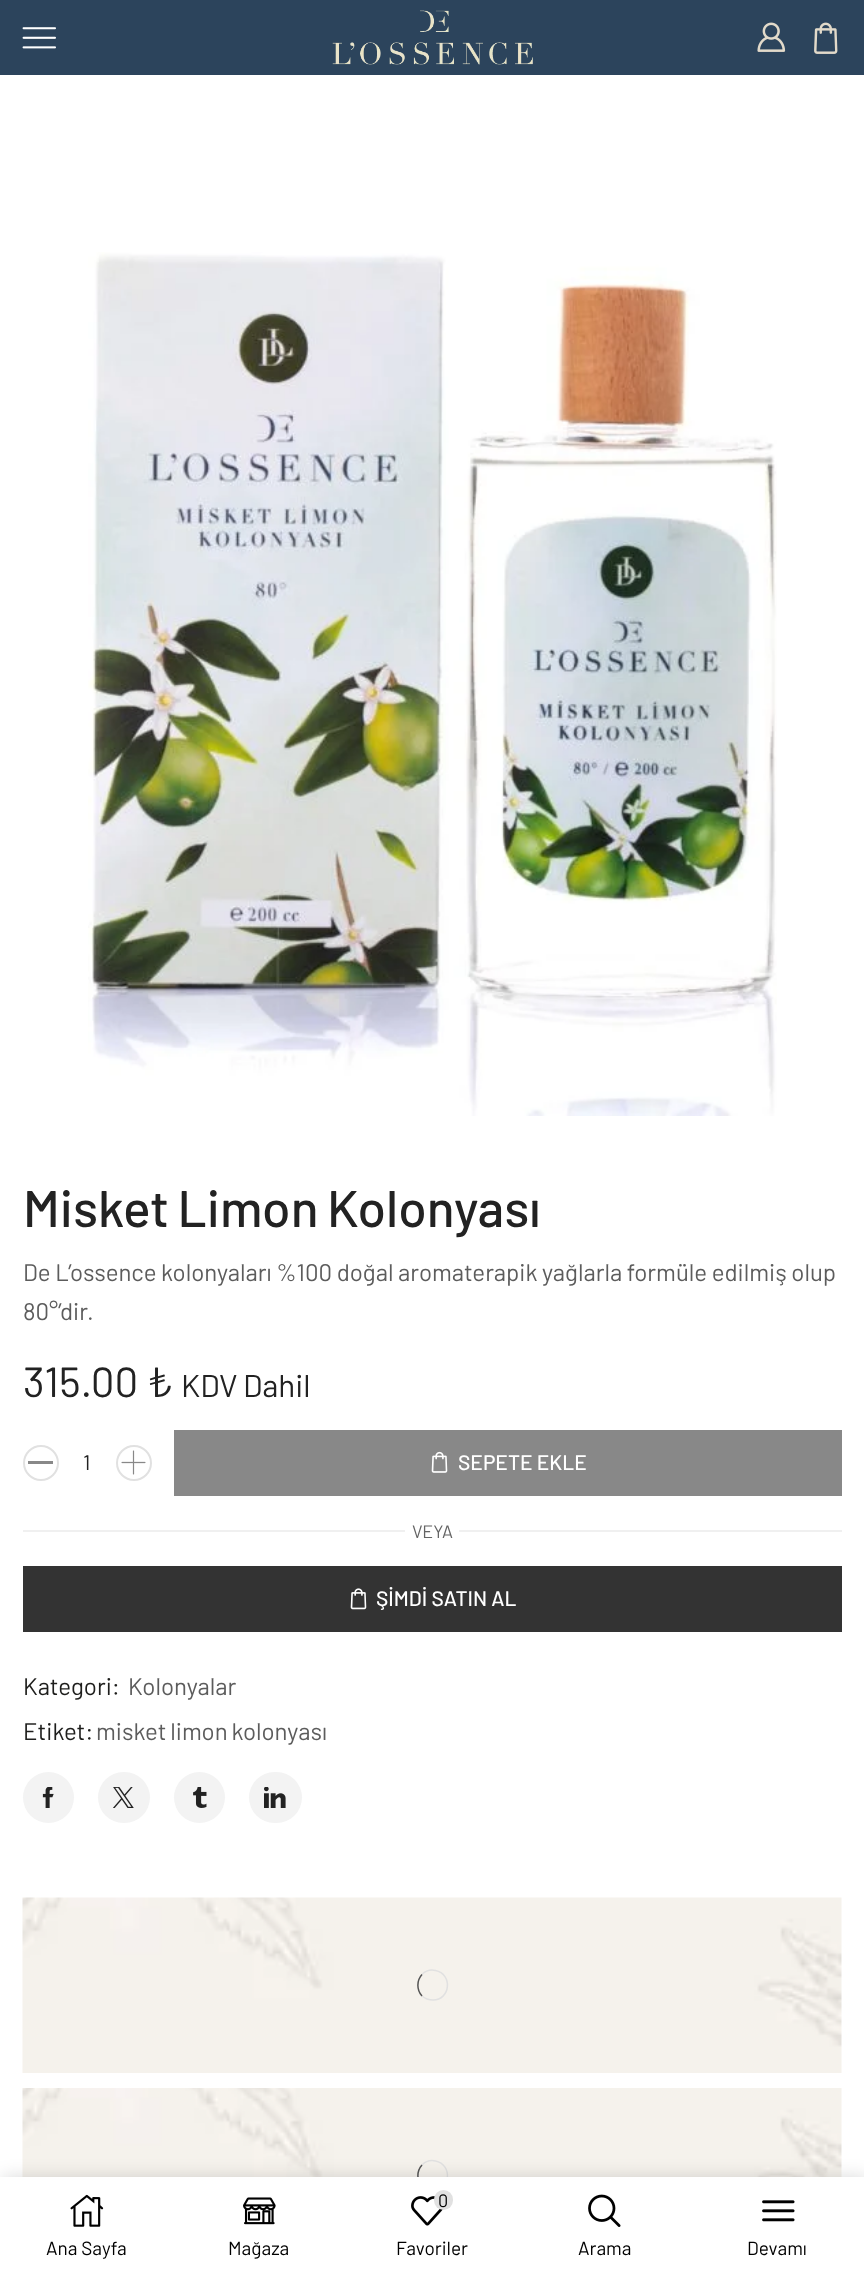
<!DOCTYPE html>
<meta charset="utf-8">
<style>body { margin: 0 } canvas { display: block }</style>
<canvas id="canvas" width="864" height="2281"></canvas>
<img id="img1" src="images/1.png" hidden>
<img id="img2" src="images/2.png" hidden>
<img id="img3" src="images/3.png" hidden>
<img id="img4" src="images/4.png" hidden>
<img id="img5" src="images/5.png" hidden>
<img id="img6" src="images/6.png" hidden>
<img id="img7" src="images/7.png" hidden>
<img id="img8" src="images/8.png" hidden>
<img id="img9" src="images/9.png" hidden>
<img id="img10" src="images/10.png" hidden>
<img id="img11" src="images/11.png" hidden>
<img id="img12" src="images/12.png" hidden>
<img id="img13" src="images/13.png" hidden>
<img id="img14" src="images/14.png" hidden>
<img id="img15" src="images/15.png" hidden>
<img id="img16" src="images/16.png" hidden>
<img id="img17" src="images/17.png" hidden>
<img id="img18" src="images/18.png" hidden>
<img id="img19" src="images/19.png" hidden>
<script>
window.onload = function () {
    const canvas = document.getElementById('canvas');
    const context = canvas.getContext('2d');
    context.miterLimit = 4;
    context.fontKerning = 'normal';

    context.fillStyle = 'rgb(255, 255, 255)';
    context.fillRect(0, 0, 864, 2281);
    context.fillStyle = 'rgb(44, 68, 92)';
    context.fillRect(0, 0, 864, 75);
    context.drawImage(document.getElementById('img1'), 22, 27, 34, 22);
    context.drawImage(document.getElementById('img2'), 332, 10, 201, 55);
    context.drawImage(document.getElementById('img3'), 757, 22, 29, 30);
    context.drawImage(document.getElementById('img4'), 814, 22, 24, 32);
    context.drawImage(document.getElementById('img5'), 88, 252, 689, 864);
    context.beginPath();
    context.arc(41, 1463, 17, 0, 2 * Math.PI);
    context.strokeStyle = 'rgb(225, 225, 225)';
    context.lineWidth = 2;
    context.stroke();
    context.fillStyle = 'rgb(136, 136, 136)';
    context.fillRect(28, 1461, 25, 3);
    context.beginPath();
    context.arc(134, 1463, 17, 0, 2 * Math.PI);
    context.stroke();
    context.drawImage(document.getElementById('img6'), 121, 1450, 25, 25);
    context.fillRect(174, 1430, 668, 66);
    context.drawImage(document.getElementById('img7'), 431, 1451, 17, 22);
    context.fillStyle = 'rgb(240, 240, 240)';
    context.fillRect(23, 1530, 382, 2);
    context.fillRect(459, 1530, 383, 2);
    context.fillStyle = 'rgb(51, 51, 51)';
    context.fillRect(23, 1566, 819, 66);
    context.drawImage(document.getElementById('img8'), 350, 1588, 17, 22);
    context.fillStyle = 'rgb(243, 243, 243)';
    context.beginPath();
    context.arc(48.5, 1797.5, 25.5, 0, 2 * Math.PI);
    context.fill();
    context.drawImage(document.getElementById('img9'), 42, 1787, 12, 21);
    context.beginPath();
    context.roundRect(98, 1772, 52, 51, 25.5);
    context.fill();
    context.drawImage(document.getElementById('img10'), 113, 1787, 21, 21);
    context.beginPath();
    context.arc(199.5, 1797.5, 25.5, 0, 2 * Math.PI);
    context.fill();
    context.drawImage(document.getElementById('img11'), 193, 1787, 14, 21);
    context.beginPath();
    context.roundRect(249, 1772, 53, 51, 25.5);
    context.fill();
    context.drawImage(document.getElementById('img12'), 264, 1787, 22, 21);
    context.drawImage(document.getElementById('img13'), 22, 1897, 820, 176);
    context.beginPath();
    context.moveTo(422, 1974.5);
    context.bezierCurveTo(425.5, 1971, 431, 1969.5, 435.5, 1970.5);
    context.bezierCurveTo(453, 1974, 450.5, 2000, 433, 2000);
    context.bezierCurveTo(429, 2000, 425, 1998.5, 422, 1996);
    context.lineWidth = 1.5;
    context.stroke();
    context.beginPath();
    context.moveTo(422, 1996);
    context.bezierCurveTo(416.5, 1990, 416.5, 1980.5, 422, 1974.5);
    context.strokeStyle = 'rgb(85, 85, 85)';
    context.stroke();
    context.drawImage(document.getElementById('img14'), 22, 2088, 820, 89);
    context.beginPath();
    context.moveTo(422, 2165);
    context.bezierCurveTo(425.5, 2161.5, 431, 2160, 435.5, 2161);
    context.bezierCurveTo(453, 2164.5, 450.5, 2191, 433, 2191);
    context.bezierCurveTo(429, 2191, 425, 2189, 422, 2186.5);
    context.strokeStyle = 'rgb(225, 225, 225)';
    context.stroke();
    context.beginPath();
    context.moveTo(422, 2186.5);
    context.bezierCurveTo(416.5, 2180.5, 416.5, 2171, 422, 2165);
    context.strokeStyle = 'rgb(85, 85, 85)';
    context.stroke();
    context.fillStyle = 'rgba(0, 0, 0, 0.15)';
    context.filter = 'blur(9px)';
    context.beginPath();
    context.rect(3, 2177, 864, 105);
    context.fill();
    context.filter = 'none';
    context.fillStyle = 'rgb(255, 255, 255)';
    context.fillRect(0, 2177, 864, 104);
    context.drawImage(document.getElementById('img15'), 70, 2194, 34, 33);
    context.drawImage(document.getElementById('img16'), 243, 2197, 33, 28);
    context.drawImage(document.getElementById('img17'), 411, 2196, 32, 30);
    context.fillStyle = 'rgb(225, 225, 225)';
    context.beginPath();
    context.roundRect(434, 2190, 19, 20, 9.5);
    context.fill();
    context.drawImage(document.getElementById('img18'), 588, 2194, 33, 33);
    context.drawImage(document.getElementById('img19'), 762, 2200, 33, 22);
    context.wordSpacing = '-2px';
    context.font = '500 51.5px Barlow';
    context.fillStyle = 'rgb(34, 34, 34)';
    context.fillText('Misket Limon Kolonyası', 23, 1227);
    context.wordSpacing = '-0.25px';
    context.font = '24px Barlow';
    context.fillStyle = 'rgb(92, 92, 92)';
    context.fillText('De L’ossence kolonyaları %100 doğal aromaterapik yağlarla formüle edilmiş olup', 23, 1281);
    context.wordSpacing = '0px';
    context.fillText('80°’dir.', 23, 1320);
    context.font = '42px Barlow';
    context.fillStyle = 'rgb(34, 34, 34)';
    context.fillText('315.00 ₺', 23, 1397);
    context.wordSpacing = '-1px';
    context.font = '31.5px Barlow';
    context.fillText('KDV Dahil', 181, 1397);
    context.wordSpacing = '0px';
    context.font = '21px Barlow';
    context.fillText('1', 83, 1470);
    context.font = '500 21px Barlow';
    context.fillStyle = 'rgb(255, 255, 255)';
    context.fillText('SEPETE EKLE', 458, 1470);
    context.font = '18px Barlow';
    context.fillStyle = 'rgb(100, 100, 100)';
    context.fillText('VEYA', 412, 1538);
    context.font = '500 21px Barlow';
    context.fillStyle = 'rgb(255, 255, 255)';
    context.fillText('ŞİMDİ SATIN AL', 376, 1606);
    context.font = '24px Barlow';
    context.fillStyle = 'rgb(30, 30, 28)';
    context.fillText('Kategori:', 23, 1695);
    context.fillStyle = 'rgb(92, 92, 92)';
    context.fillText('Kolonyalar', 128, 1695);
    context.fillStyle = 'rgb(30, 30, 28)';
    context.fillText('Etiket:', 23, 1740);
    context.wordSpacing = '-1px';
    context.fillStyle = 'rgb(92, 92, 92)';
    context.fillText('misket limon kolonyası', 96, 1740);
    context.wordSpacing = '0px';
    context.font = '19px Barlow';
    context.fillStyle = 'rgb(0, 0, 0)';
    context.fillText('Ana Sayfa', 46, 2255);
    context.fillText('Mağaza', 228, 2255);
    context.font = '18px Barlow';
    context.fillText('0', 438, 2207);
    context.font = '19px Barlow';
    context.fillText('Favoriler', 396, 2255);
    context.fillText('Arama', 578, 2255);
    context.fillText('Devamı', 747, 2255);
};
</script>
